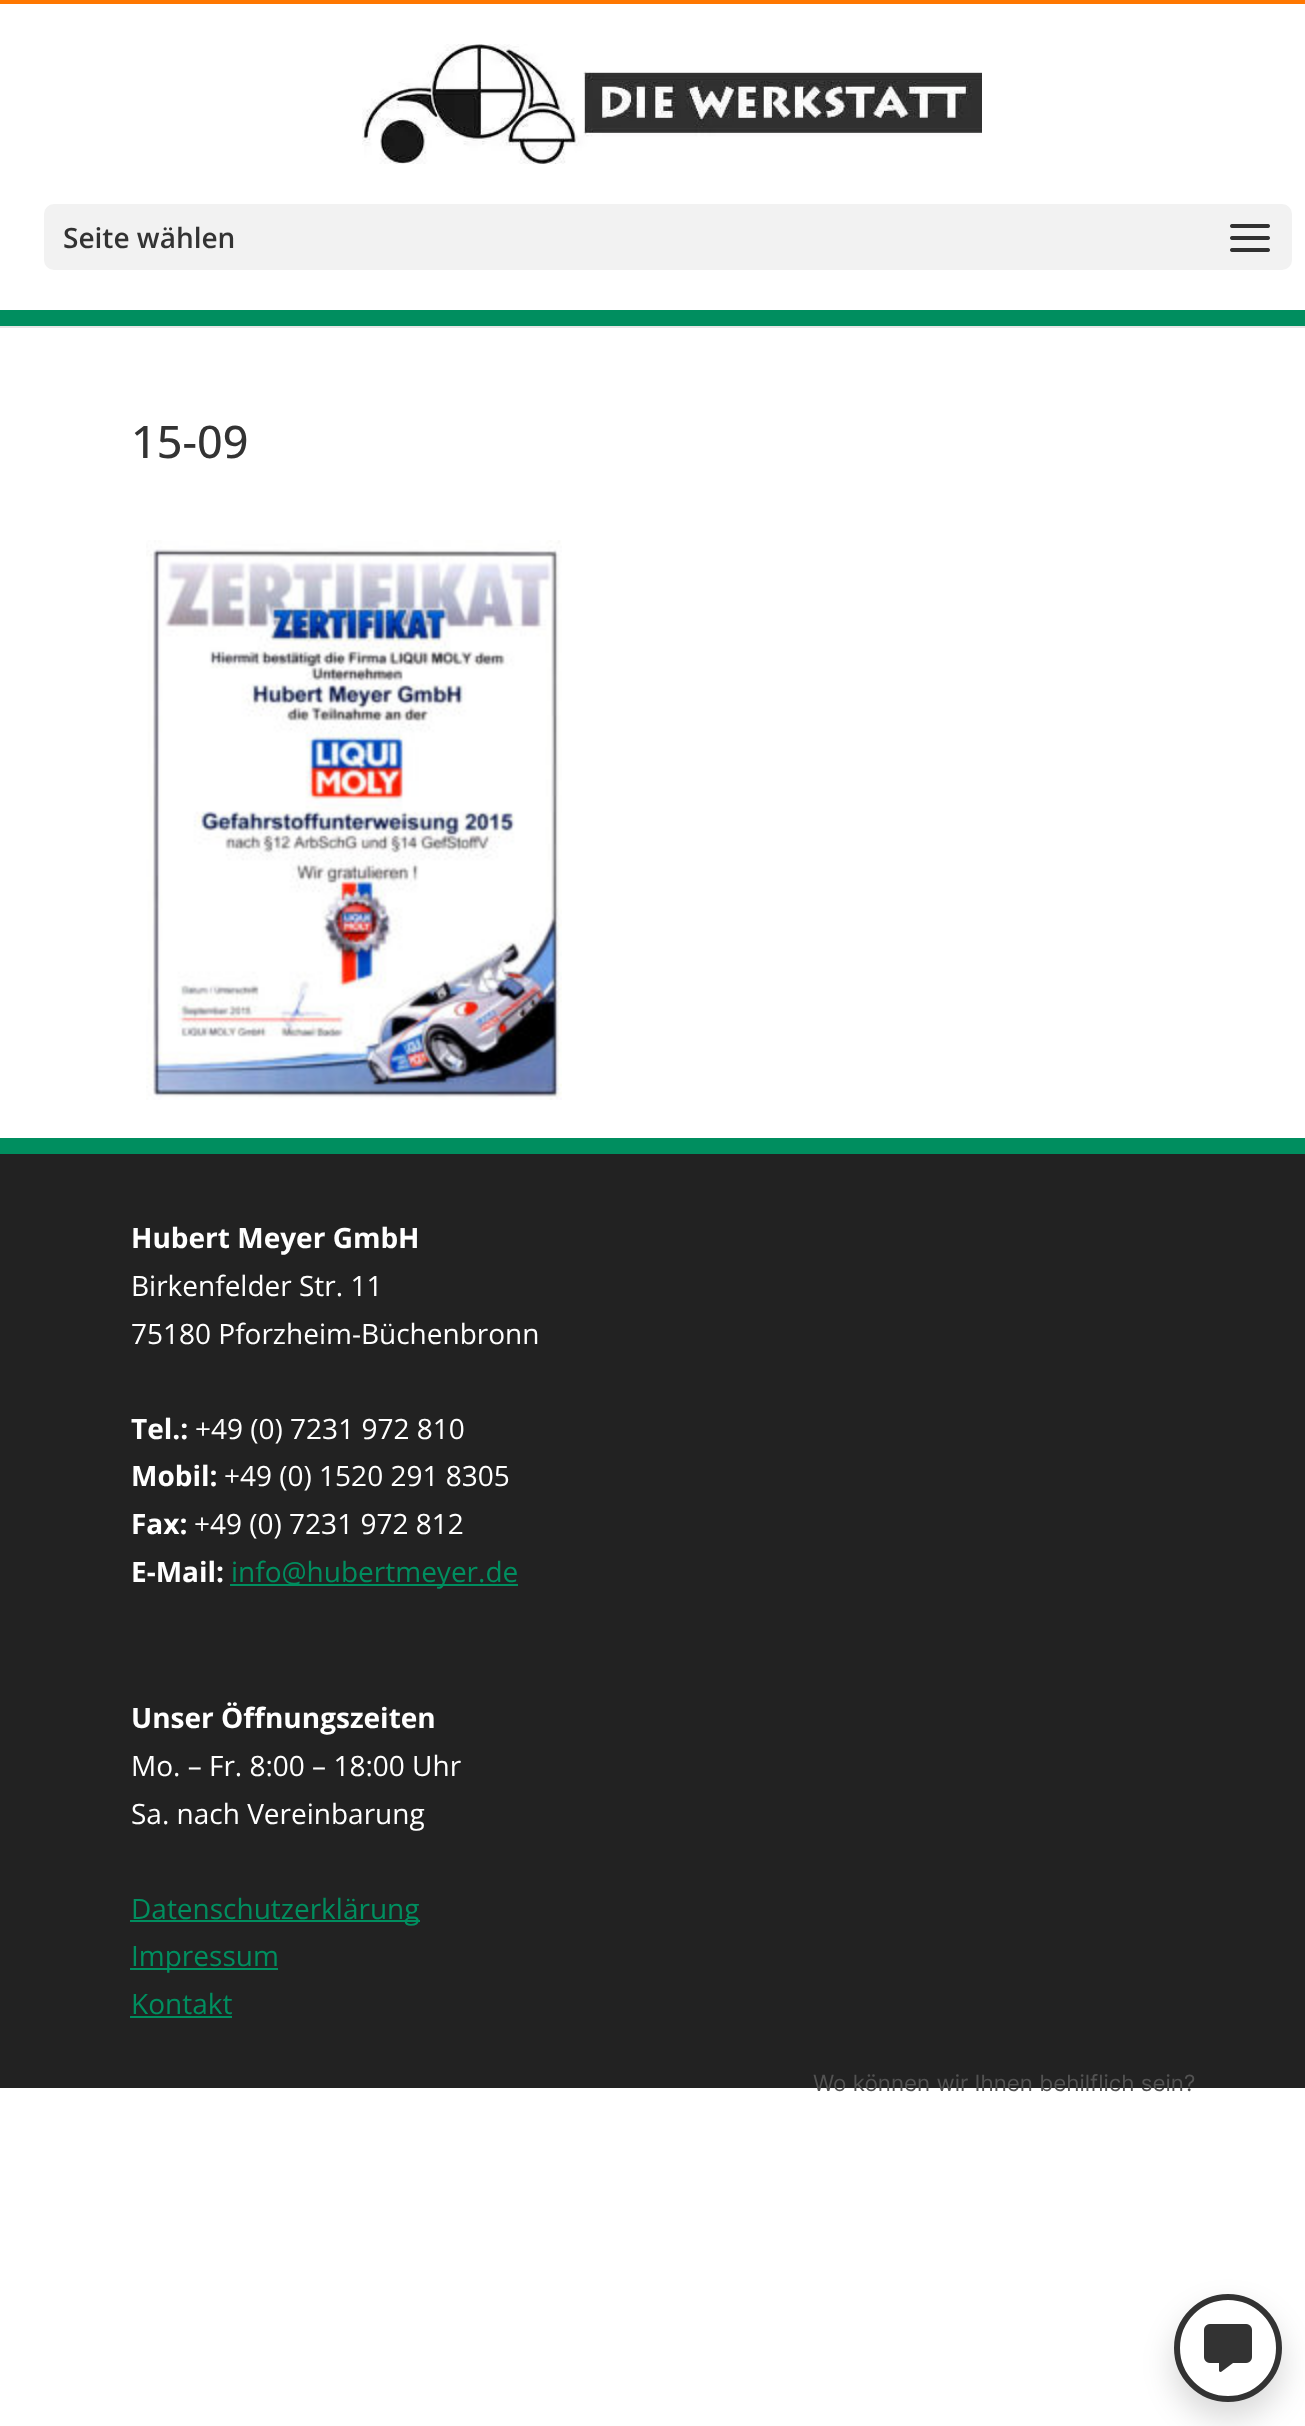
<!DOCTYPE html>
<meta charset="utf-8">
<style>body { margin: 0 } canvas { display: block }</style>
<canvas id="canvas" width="1305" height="2426"></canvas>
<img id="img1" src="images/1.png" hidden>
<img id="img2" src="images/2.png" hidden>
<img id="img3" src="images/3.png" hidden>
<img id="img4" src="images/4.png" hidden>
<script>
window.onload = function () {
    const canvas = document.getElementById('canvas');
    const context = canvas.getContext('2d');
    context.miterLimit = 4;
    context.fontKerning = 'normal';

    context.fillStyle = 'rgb(255, 255, 255)';
    context.fillRect(0, 0, 1305, 2426);
    context.fillStyle = 'rgb(230, 230, 230)';
    context.fillRect(0, 326, 1305, 2);
    context.fillStyle = 'rgb(255, 119, 0)';
    context.fillRect(0, 0, 1305, 4);
    context.fillStyle = 'rgb(0, 142, 95)';
    context.fillRect(0, 310, 1305, 16);
    context.drawImage(document.getElementById('img1'), 362, 44, 620, 120);
    context.fillStyle = 'rgb(242, 242, 242)';
    context.beginPath();
    context.roundRect(44, 204, 1248, 66, 10);
    context.fill();
    context.drawImage(document.getElementById('img2'), 1230, 224, 40, 28);
    context.drawImage(document.getElementById('img3'), 146, 540, 416, 560);
    context.fillStyle = 'rgb(34, 34, 34)';
    context.fillRect(0, 1154, 1305, 934);
    context.fillStyle = 'rgb(0, 142, 95)';
    context.fillRect(0, 1138, 1305, 16);
    context.fillRect(230, 1584, 288, 2);
    context.fillRect(130, 1920, 290, 2);
    context.fillRect(130, 1968, 148, 2);
    context.fillRect(130, 2016, 102, 2);
    context.fillStyle = 'rgba(0, 0, 0, 0.14)';
    context.filter = 'blur(15px)';
    context.beginPath();
    context.roundRect(1172, 2308, 112, 112, 56);
    context.fill();
    context.filter = 'none';
    context.fillStyle = 'rgb(255, 255, 255)';
    context.beginPath();
    context.arc(1228, 2348, 51, 0, 2 * Math.PI);
    context.fill();
    context.strokeStyle = 'rgb(51, 51, 51)';
    context.lineWidth = 6;
    context.stroke();
    context.drawImage(document.getElementById('img4'), 1204, 2324, 48, 48);
    context.font = '600 28px Open Sans';
    context.fillStyle = 'rgb(51, 51, 51)';
    context.fillText('Seite wählen', 63, 248);
    context.font = '500 45px Open Sans';
    context.fillText('15-09', 131, 458);
    context.font = 'bold 28px Open Sans';
    context.fillStyle = 'rgb(255, 255, 255)';
    context.fillText('Hubert Meyer GmbH', 131, 1248);
    context.font = '28px Open Sans';
    context.fillText('Birkenfelder Str. 11', 131, 1296);
    context.fillText('75180 Pforzheim-Büchenbronn', 131, 1344);
    context.font = 'bold 28px Open Sans';
    context.fillText('Tel.:', 131, 1439);
    context.font = '28px Open Sans';
    context.fillText('+49 (0) 7231 972 810', 195, 1439);
    context.font = 'bold 28px Open Sans';
    context.fillText('Mobil:', 131, 1486);
    context.font = '28px Open Sans';
    context.fillText('+49 (0) 1520 291 8305', 224, 1486);
    context.font = 'bold 28px Open Sans';
    context.fillText('Fax:', 131, 1534);
    context.font = '28px Open Sans';
    context.fillText('+49 (0) 7231 972 812', 194, 1534);
    context.font = 'bold 28px Open Sans';
    context.fillText('E-Mail:', 131, 1582);
    context.font = '28px Open Sans';
    context.fillStyle = 'rgb(0, 142, 95)';
    context.fillText('info@hubertmeyer.de', 231, 1582);
    context.font = 'bold 28px Open Sans';
    context.fillStyle = 'rgb(255, 255, 255)';
    context.fillText('Unser Öffnungszeiten', 131, 1728);
    context.font = '28px Open Sans';
    context.fillText('Mo. – Fr. 8:00 – 18:00 Uhr', 131, 1776);
    context.fillText('Sa. nach Vereinbarung', 131, 1824);
    context.fillStyle = 'rgb(0, 142, 95)';
    context.fillText('Datenschutzerklärung', 131, 1919);
    context.fillText('Impressum', 131, 1966);
    context.fillText('Kontakt', 131, 2014);
    context.font = '22.4px Inter';
    context.fillStyle = 'rgb(82, 82, 82)';
    context.fillText('Wo können wir Ihnen behilflich sein?', 813, 2091);
};
</script>
